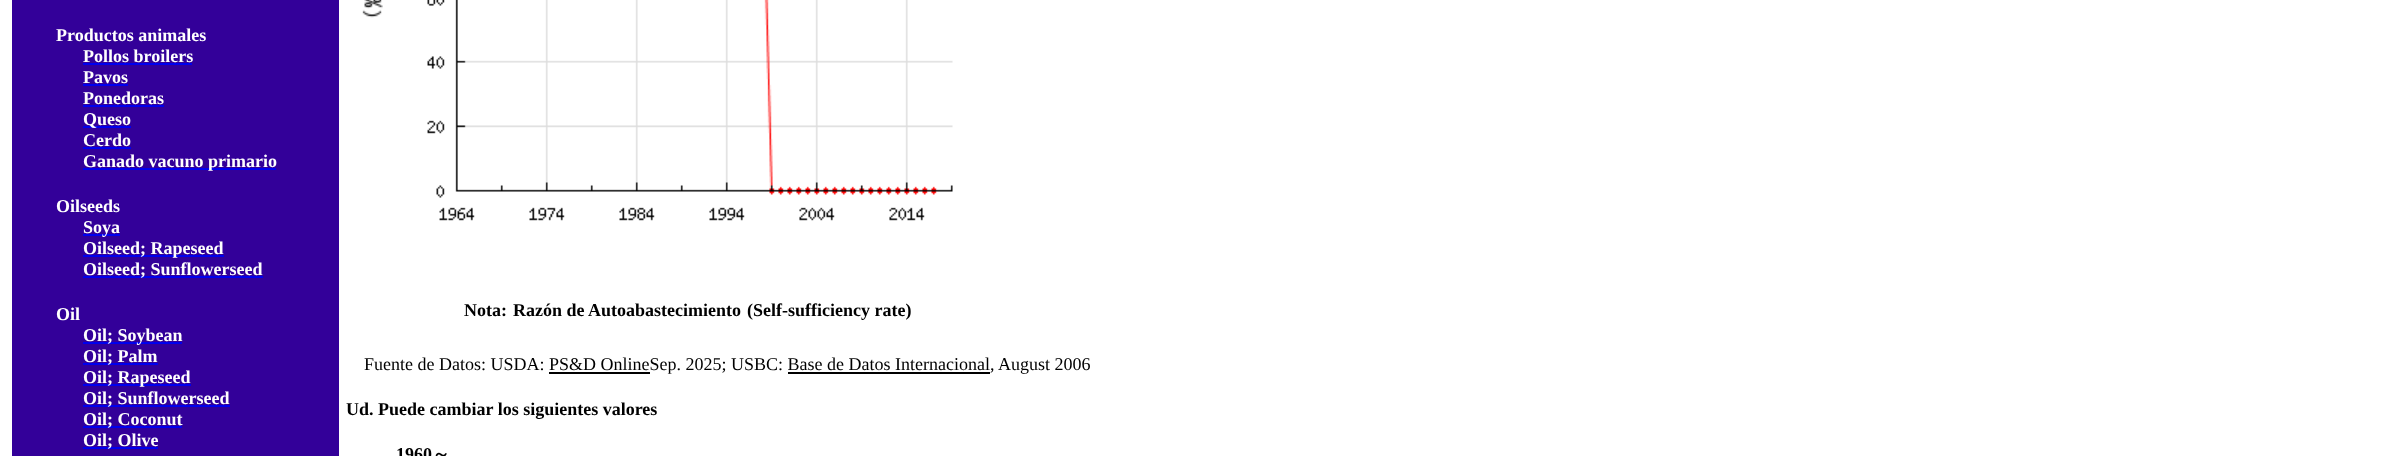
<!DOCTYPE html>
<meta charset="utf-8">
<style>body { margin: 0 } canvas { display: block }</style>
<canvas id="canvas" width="2402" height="456"></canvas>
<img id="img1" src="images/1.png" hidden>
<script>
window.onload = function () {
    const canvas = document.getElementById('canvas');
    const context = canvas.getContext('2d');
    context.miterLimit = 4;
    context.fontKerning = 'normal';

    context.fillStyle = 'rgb(255, 255, 255)';
    context.fillRect(0, 0, 2402, 456);
    context.fillStyle = 'rgb(51, 0, 153)';
    context.fillRect(12, 0, 327, 456);
    context.fillStyle = 'rgb(0, 0, 238)';
    context.fillRect(83, 63, 109, 2);
    context.fillRect(83, 84, 45, 2);
    context.fillRect(83, 105, 81, 2);
    context.fillRect(83, 126, 48, 2);
    context.fillRect(83, 147, 48, 2);
    context.fillRect(83, 168, 193, 2);
    context.fillRect(83, 234, 37, 2);
    context.fillRect(83, 255, 141, 2);
    context.fillRect(83, 276, 180, 2);
    context.fillRect(83, 342, 99, 2);
    context.fillRect(83, 363, 75, 2);
    context.fillRect(83, 384, 108, 2);
    context.fillRect(83, 405, 147, 2);
    context.fillRect(83, 426, 99, 2);
    context.fillRect(83, 447, 75, 2);
    context.drawImage(document.getElementById('img1'), 362, 0, 591, 221);
    context.fillStyle = 'rgb(0, 0, 0)';
    context.fillRect(549, 372, 101, 2);
    context.fillRect(788, 372, 202, 2);
    context.font = 'bold 18px Liberation Serif';
    context.fillStyle = 'rgb(255, 255, 255)';
    context.fillText('Productos animales', 56, 41);
    context.fillText('Pollos broilers', 83, 62);
    context.fillText('Pavos', 83, 83);
    context.fillText('Ponedoras', 83, 104);
    context.fillText('Queso', 83, 125);
    context.fillText('Cerdo', 83, 146);
    context.fillText('Ganado vacuno primario', 83, 167);
    context.fillText('Oilseeds', 56, 212);
    context.fillText('Soya', 83, 233);
    context.fillText('Oilseed; Rapeseed', 83, 254);
    context.fillText('Oilseed; Sunflowerseed', 83, 275);
    context.fillText('Oil', 56, 320);
    context.fillText('Oil; Soybean', 83, 341);
    context.fillText('Oil; Palm', 83, 362);
    context.fillText('Oil; Rapeseed', 83, 383);
    context.fillText('Oil; Sunflowerseed', 83, 404);
    context.fillText('Oil; Coconut', 83, 425);
    context.fillText('Oil; Olive', 83, 446);
    context.fillStyle = 'rgb(0, 0, 0)';
    context.fillText('Nota:', 464, 316);
    context.fillText('Razón de Autoabastecimiento', 513, 316);
    context.fillText('(Self-sufficiency rate)', 747, 316);
    context.font = '18px Liberation Serif';
    context.fillText('Fuente de Datos: USDA: PS&D OnlineSep. 2025; USBC: Base de Datos Internacional, August 2006', 364, 370);
    context.font = 'bold 18px Liberation Serif';
    context.fillText('Ud. Puede cambiar los siguientes valores', 346, 415);
    context.fillText('1960', 396, 460);
    context.font = 'bold 18px WenQuanYi Zen Hei';
    context.fillText('～', 432, 460);
};
</script>
